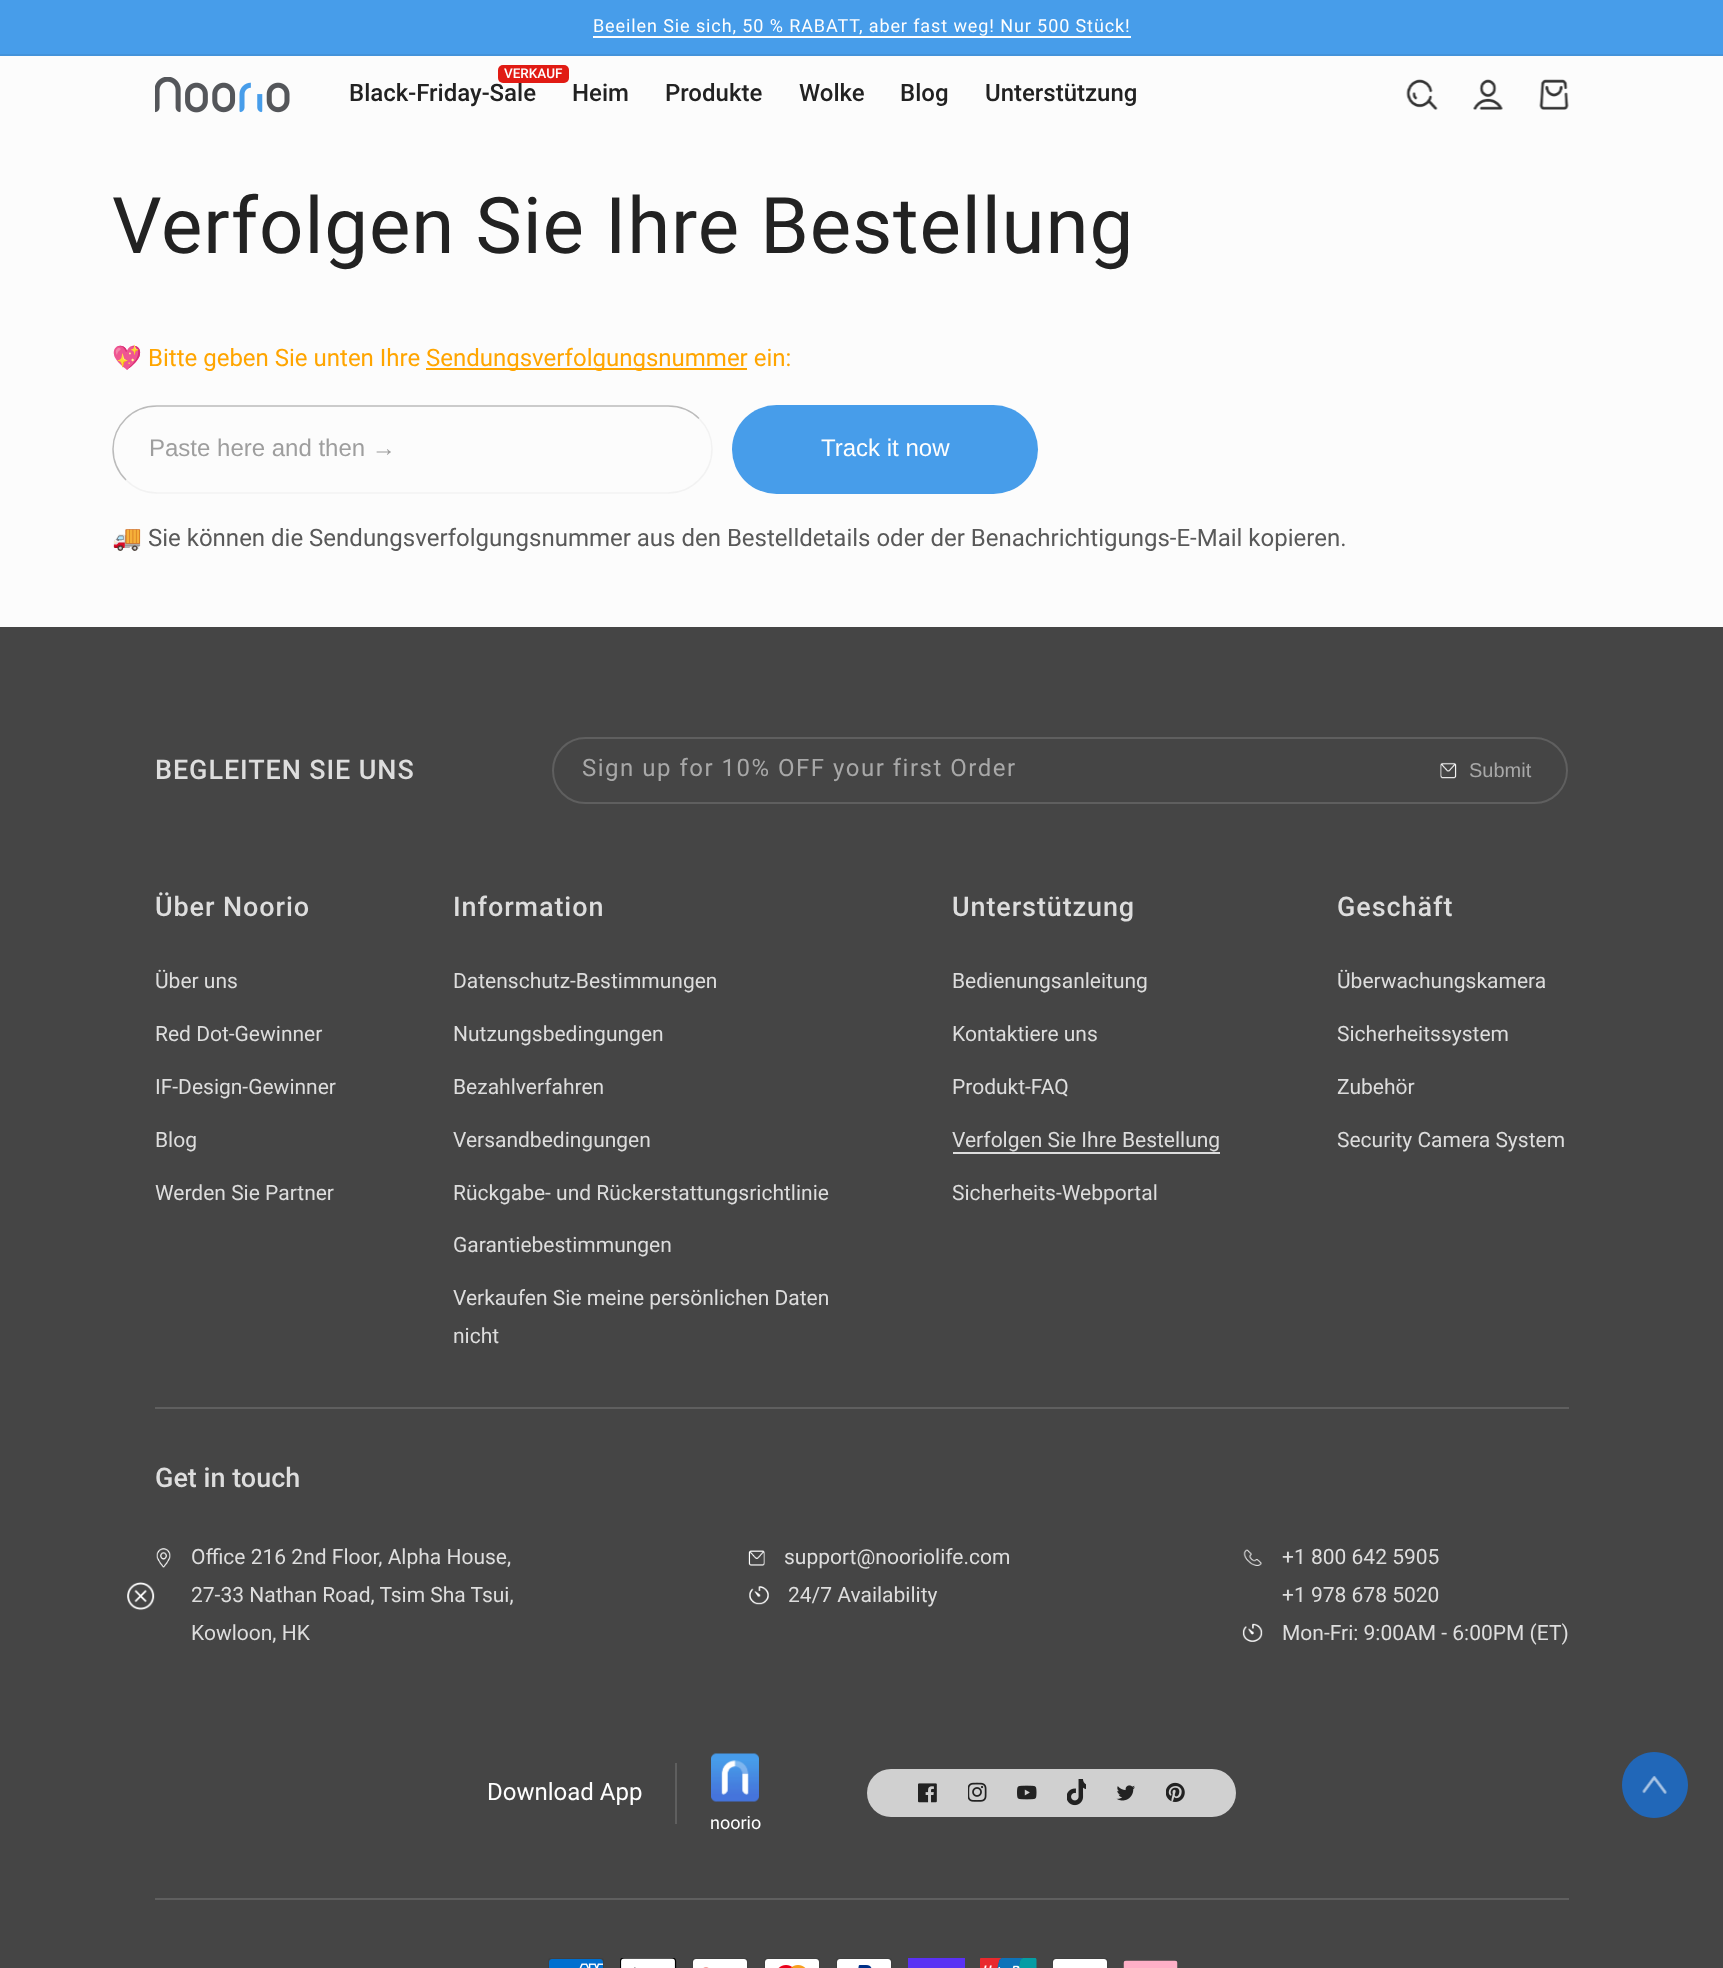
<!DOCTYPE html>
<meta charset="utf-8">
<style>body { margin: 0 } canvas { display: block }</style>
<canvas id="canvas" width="1723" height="1968"></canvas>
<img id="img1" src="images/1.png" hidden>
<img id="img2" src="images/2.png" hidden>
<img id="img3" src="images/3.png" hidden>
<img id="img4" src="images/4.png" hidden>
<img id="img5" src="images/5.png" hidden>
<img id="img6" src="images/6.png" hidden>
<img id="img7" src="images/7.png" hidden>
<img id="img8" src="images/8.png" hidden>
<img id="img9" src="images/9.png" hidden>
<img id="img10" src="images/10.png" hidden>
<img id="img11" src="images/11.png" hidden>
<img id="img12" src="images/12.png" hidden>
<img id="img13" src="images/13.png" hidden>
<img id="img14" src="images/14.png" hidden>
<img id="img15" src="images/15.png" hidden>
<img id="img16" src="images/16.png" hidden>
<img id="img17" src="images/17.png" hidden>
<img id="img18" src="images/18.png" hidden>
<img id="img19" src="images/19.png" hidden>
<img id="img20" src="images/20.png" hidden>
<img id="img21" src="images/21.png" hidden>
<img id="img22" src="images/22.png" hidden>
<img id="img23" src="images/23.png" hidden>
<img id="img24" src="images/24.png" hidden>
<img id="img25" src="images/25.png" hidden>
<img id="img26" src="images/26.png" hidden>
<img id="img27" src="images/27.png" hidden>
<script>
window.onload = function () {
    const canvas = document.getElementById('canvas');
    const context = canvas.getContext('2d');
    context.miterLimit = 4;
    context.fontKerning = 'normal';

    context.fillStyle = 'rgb(252, 252, 252)';
    context.fillRect(0, 0, 1723, 1968);
    context.fillStyle = 'rgb(71, 157, 234)';
    context.fillRect(0, 0, 1723, 54);
    context.fillStyle = 'rgb(68, 147, 218)';
    context.fillRect(0, 54, 1723, 2);
    context.fillStyle = 'rgb(255, 255, 255)';
    context.fillRect(593, 36, 538, 2);
    context.drawImage(document.getElementById('img1'), 155, 77, 135, 36);
    context.fillStyle = 'rgb(225, 27, 20)';
    context.beginPath();
    context.roundRect(498, 65, 71, 18, 5);
    context.fill();
    context.drawImage(document.getElementById('img2'), 1406, 79, 32, 31);
    context.drawImage(document.getElementById('img3'), 1473, 79, 30, 31);
    context.drawImage(document.getElementById('img4'), 1539, 79, 30, 31);
    context.fillStyle = 'rgb(255, 165, 0)';
    context.fillRect(426, 368, 321, 2);
    context.beginPath();
    context.moveTo(699, 418.5);
    context.bezierCurveTo(707, 426.5, 712, 437.5, 712, 449);
    context.bezierCurveTo(712, 461, 707, 472, 699, 480);
    context.bezierCurveTo(691, 488, 680, 493, 668, 493);
    context.lineTo(157, 493);
    context.bezierCurveTo(145, 493, 134, 488, 126, 480);
    context.strokeStyle = 'rgb(242, 242, 242)';
    context.lineWidth = 1.5;
    context.stroke();
    context.beginPath();
    context.moveTo(126, 480);
    context.bezierCurveTo(118, 472, 113, 461, 113, 449);
    context.bezierCurveTo(113, 437.5, 118, 426.5, 126, 418.5);
    context.bezierCurveTo(134, 410.5, 145, 406, 157, 406);
    context.lineTo(668, 406);
    context.bezierCurveTo(680, 406, 691, 410.5, 699, 418.5);
    context.strokeStyle = 'rgb(187, 187, 187)';
    context.stroke();
    context.fillStyle = 'rgb(71, 157, 234)';
    context.beginPath();
    context.roundRect(732, 405, 306, 89, 44.5);
    context.fill();
    context.fillStyle = 'rgb(69, 69, 69)';
    context.fillRect(0, 627, 1723, 1341);
    context.drawImage(document.getElementById('img5'), 127, 1582, 28, 29);
    context.beginPath();
    context.roundRect(553, 738, 1014, 65, 32.5);
    context.strokeStyle = 'rgb(95, 95, 95)';
    context.lineWidth = 2;
    context.stroke();
    context.drawImage(document.getElementById('img6'), 1440, 762, 17, 17);
    context.fillStyle = 'rgb(95, 95, 95)';
    context.fillRect(155, 1407, 1414, 2);
    context.fillStyle = 'rgb(221, 221, 221)';
    context.fillRect(953, 1152, 267, 2);
    context.drawImage(document.getElementById('img7'), 156, 1548, 15, 20);
    context.drawImage(document.getElementById('img8'), 748, 1550, 17, 16);
    context.drawImage(document.getElementById('img9'), 749, 1586, 20, 19);
    context.drawImage(document.getElementById('img10'), 1243, 1549, 19, 17);
    context.drawImage(document.getElementById('img11'), 1242, 1623, 21, 19);
    context.fillStyle = 'rgb(95, 95, 95)';
    context.fillRect(155, 1898, 1414, 2);
    context.fillRect(675, 1763, 2, 61);
    context.drawImage(document.getElementById('img12'), 711, 1753, 48, 49);
    context.fillStyle = 'rgb(208, 208, 208)';
    context.beginPath();
    context.roundRect(867, 1769, 369, 48, 24);
    context.fill();
    context.drawImage(document.getElementById('img13'), 918, 1783, 19, 20);
    context.drawImage(document.getElementById('img14'), 968, 1782, 19, 20);
    context.drawImage(document.getElementById('img15'), 1017, 1785, 20, 15);
    context.drawImage(document.getElementById('img16'), 1067, 1779, 19, 27);
    context.drawImage(document.getElementById('img17'), 1116, 1785, 19, 16);
    context.drawImage(document.getElementById('img18'), 1166, 1782, 19, 20);
    context.drawImage(document.getElementById('img19'), 548, 1958, 56, 10);
    context.drawImage(document.getElementById('img20'), 620, 1958, 57, 10);
    context.drawImage(document.getElementById('img21'), 692, 1958, 56, 10);
    context.drawImage(document.getElementById('img22'), 764, 1958, 56, 10);
    context.drawImage(document.getElementById('img23'), 836, 1958, 56, 10);
    context.fillStyle = 'rgb(90, 49, 244)';
    context.fillRect(908, 1958, 57, 10);
    context.drawImage(document.getElementById('img24'), 980, 1958, 57, 10);
    context.drawImage(document.getElementById('img25'), 1052, 1958, 56, 10);
    context.drawImage(document.getElementById('img26'), 1123, 1960, 55, 8);
    context.fillStyle = 'rgb(33, 103, 184)';
    context.beginPath();
    context.moveTo(1622, 1785);
    context.bezierCurveTo(1622, 1767, 1636, 1752, 1654, 1752);
    context.bezierCurveTo(1673, 1752, 1688, 1767, 1688, 1785);
    context.bezierCurveTo(1688, 1803, 1673, 1818, 1654, 1818);
    context.bezierCurveTo(1636, 1818, 1622, 1803, 1622, 1785);
    context.closePath();
    context.fill();
    context.drawImage(document.getElementById('img27'), 1642, 1776, 25, 18);
    context.letterSpacing = '0.9px';
    context.font = '18px Roboto';
    context.fillStyle = 'rgb(254, 254, 254)';
    context.fillText('Beeilen Sie sich, 50 % RABATT, aber fast weg! Nur 500 Stück!', 593, 32);
    context.letterSpacing = '0px';
    context.font = '500 13.5px Roboto';
    context.fillText('VERKAUF', 504, 78);
    context.font = '500 24px Roboto';
    context.fillStyle = 'rgb(34, 34, 34)';
    context.fillText('Black-Friday-Sale', 349, 101);
    context.fillText('Heim', 572, 101);
    context.fillText('Produkte', 665, 101);
    context.fillText('Wolke', 799, 101);
    context.fillText('Blog', 900, 101);
    context.fillText('Unterstützung', 985, 101);
    context.letterSpacing = '0.9px';
    context.font = '78px Roboto';
    context.fillText('Verfolgen Sie Ihre Bestellung', 112, 253);
    context.letterSpacing = '0px';
    context.font = '24px Noto Color Emoji';
    context.fillStyle = 'rgb(255, 165, 0)';
    context.fillText('💖', 112, 366);
    context.font = '24px Roboto';
    context.fillText('Bitte geben Sie unten Ihre', 148, 366);
    context.fillText('Sendungsverfolgungsnummer ein:', 426, 366);
    context.font = '24px Liberation Sans';
    context.fillStyle = 'rgb(158, 158, 158)';
    context.fillText('Paste here and then →', 149, 456);
    context.fillStyle = 'rgb(254, 254, 254)';
    context.fillText('Track it now', 821, 456);
    context.font = '24px Noto Color Emoji';
    context.fillStyle = 'rgb(89, 89, 89)';
    context.fillText('🚚', 112, 546);
    context.font = '24px Roboto';
    context.fillText('Sie können die Sendungsverfolgungsnummer aus den Bestelldetails oder der Benachrichtigungs-E-Mail kopieren.', 148, 546);
    context.letterSpacing = '0.9px';
    context.font = '500 27px Roboto';
    context.fillStyle = 'rgb(221, 221, 221)';
    context.fillText('BEGLEITEN SIE UNS', 155, 779);
    context.letterSpacing = '1.5px';
    context.font = '24px Roboto';
    context.fillStyle = 'rgb(168, 168, 168)';
    context.fillText('Sign up for 10% OFF your first Order', 582, 776);
    context.letterSpacing = '0px';
    context.font = '20px Liberation Sans';
    context.fillText('Submit', 1469, 777);
    context.letterSpacing = '0.9px';
    context.font = '500 27px Roboto';
    context.fillStyle = 'rgb(221, 221, 221)';
    context.fillText('Über Noorio', 155, 916);
    context.letterSpacing = '0px';
    context.font = '21px Roboto';
    context.fillText('Über uns', 155, 988);
    context.fillText('Red Dot-Gewinner', 155, 1041);
    context.fillText('IF-Design-Gewinner', 155, 1094);
    context.fillText('Blog', 155, 1147);
    context.fillText('Werden Sie Partner', 155, 1200);
    context.letterSpacing = '0.9px';
    context.font = '500 27px Roboto';
    context.fillText('Information', 453, 916);
    context.letterSpacing = '0px';
    context.font = '21px Roboto';
    context.fillText('Datenschutz-Bestimmungen', 453, 988);
    context.fillText('Nutzungsbedingungen', 453, 1041);
    context.fillText('Bezahlverfahren', 453, 1094);
    context.fillText('Versandbedingungen', 453, 1147);
    context.fillText('Rückgabe- und Rückerstattungsrichtlinie', 453, 1200);
    context.fillText('Garantiebestimmungen', 453, 1252);
    context.fillText('Verkaufen Sie meine persönlichen Daten', 453, 1305);
    context.fillText('nicht', 453, 1343);
    context.letterSpacing = '0.9px';
    context.font = '500 27px Roboto';
    context.fillText('Unterstützung', 952, 916);
    context.letterSpacing = '0px';
    context.font = '21px Roboto';
    context.fillText('Bedienungsanleitung', 952, 988);
    context.fillText('Kontaktiere uns', 952, 1041);
    context.fillText('Produkt-FAQ', 952, 1094);
    context.fillText('Verfolgen Sie Ihre Bestellung', 952, 1147);
    context.fillText('Sicherheits-Webportal', 952, 1200);
    context.letterSpacing = '0.9px';
    context.font = '500 27px Roboto';
    context.fillText('Geschäft', 1337, 916);
    context.letterSpacing = '0px';
    context.font = '21px Roboto';
    context.fillText('Überwachungskamera', 1337, 988);
    context.fillText('Sicherheitssystem', 1337, 1041);
    context.fillText('Zubehör', 1337, 1094);
    context.fillText('Security Camera System', 1337, 1147);
    context.font = '500 27px Roboto';
    context.fillText('Get in touch', 155, 1487);
    context.font = '21px Roboto';
    context.fillText('Office 216 2nd Floor, Alpha House,', 191, 1564);
    context.fillText('27-33 Nathan Road, Tsim Sha Tsui,', 191, 1602);
    context.fillText('Kowloon, HK', 191, 1640);
    context.fillText('support@nooriolife.com', 784, 1564);
    context.fillText('24/7 Availability', 788, 1602);
    context.fillText('+1 800 642 5905', 1282, 1564);
    context.fillText('+1 978 678 5020', 1282, 1602);
    context.fillText('Mon-Fri: 9:00AM - 6:00PM (ET)', 1282, 1640);
    context.font = '24px Roboto';
    context.fillStyle = 'rgb(254, 254, 254)';
    context.fillText('Download App', 487, 1800);
    context.font = '18px Roboto';
    context.fillText('noorio', 710, 1829);
};
</script>
